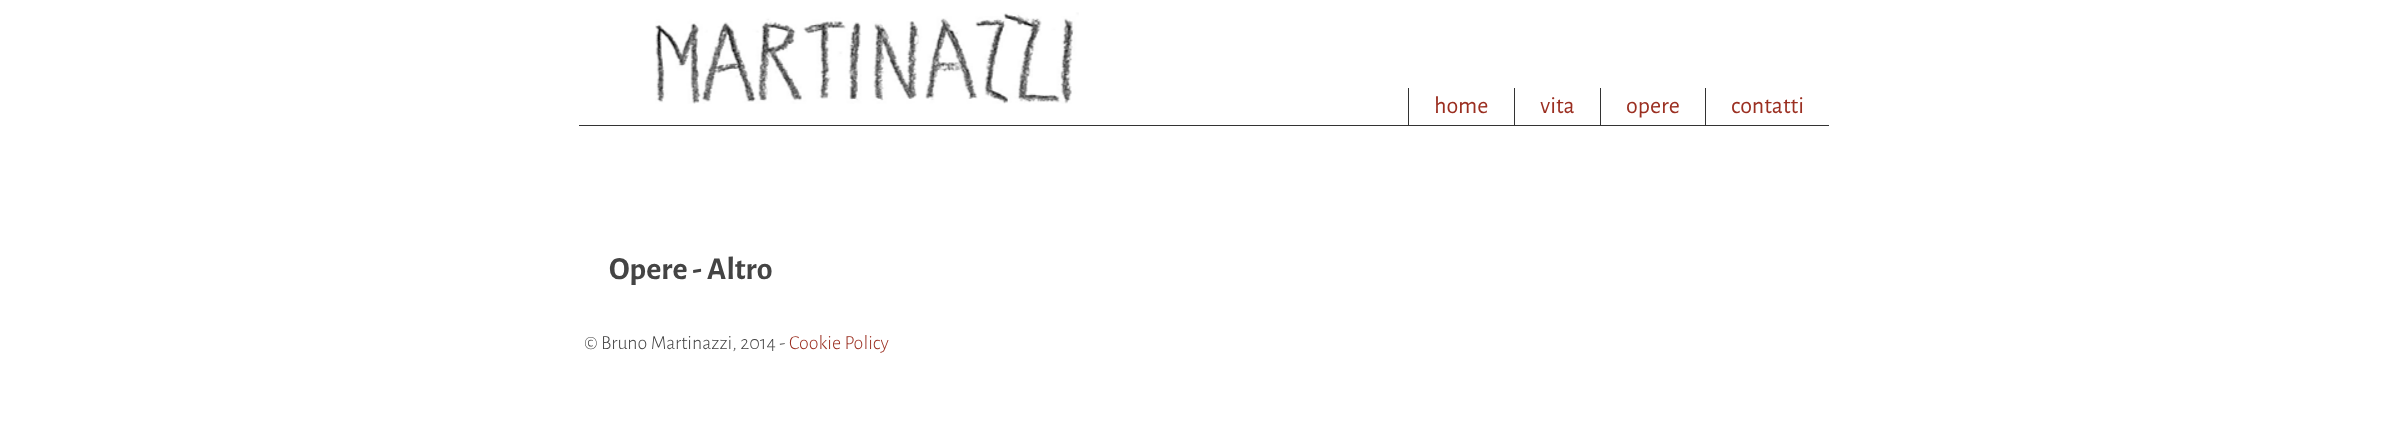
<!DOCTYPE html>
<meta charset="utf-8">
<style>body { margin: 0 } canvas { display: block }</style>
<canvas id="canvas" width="2404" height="437"></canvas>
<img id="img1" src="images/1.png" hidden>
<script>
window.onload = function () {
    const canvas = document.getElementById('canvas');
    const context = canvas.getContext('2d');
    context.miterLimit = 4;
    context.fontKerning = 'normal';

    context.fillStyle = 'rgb(255, 255, 255)';
    context.fillRect(0, 0, 2404, 437);
    context.drawImage(document.getElementById('img1'), 655, 12, 424, 92);
    context.fillStyle = 'rgb(51, 51, 51)';
    context.fillRect(579, 125, 1250, 1);
    context.fillRect(1408, 88, 1, 37);
    context.fillRect(1514, 88, 1, 37);
    context.fillRect(1600, 88, 1, 37);
    context.fillRect(1705, 88, 1, 37);
    context.font = '24px Alegreya Sans';
    context.fillStyle = 'rgb(155, 47, 33)';
    context.fillText('home', 1434, 113);
    context.fillText('vita', 1540, 113);
    context.fillText('opere', 1626, 113);
    context.fillText('contatti', 1731, 113);
    context.font = 'bold 32px Alegreya Sans';
    context.fillStyle = 'rgb(68, 68, 68)';
    context.fillText('Opere - Altro', 609, 279);
    context.font = '300 20px Alegreya Sans';
    context.fillText('© Bruno Martinazzi, 2014 -', 584, 349);
    context.fillStyle = 'rgb(155, 47, 33)';
    context.fillText('Cookie Policy', 789, 349);
};
</script>
